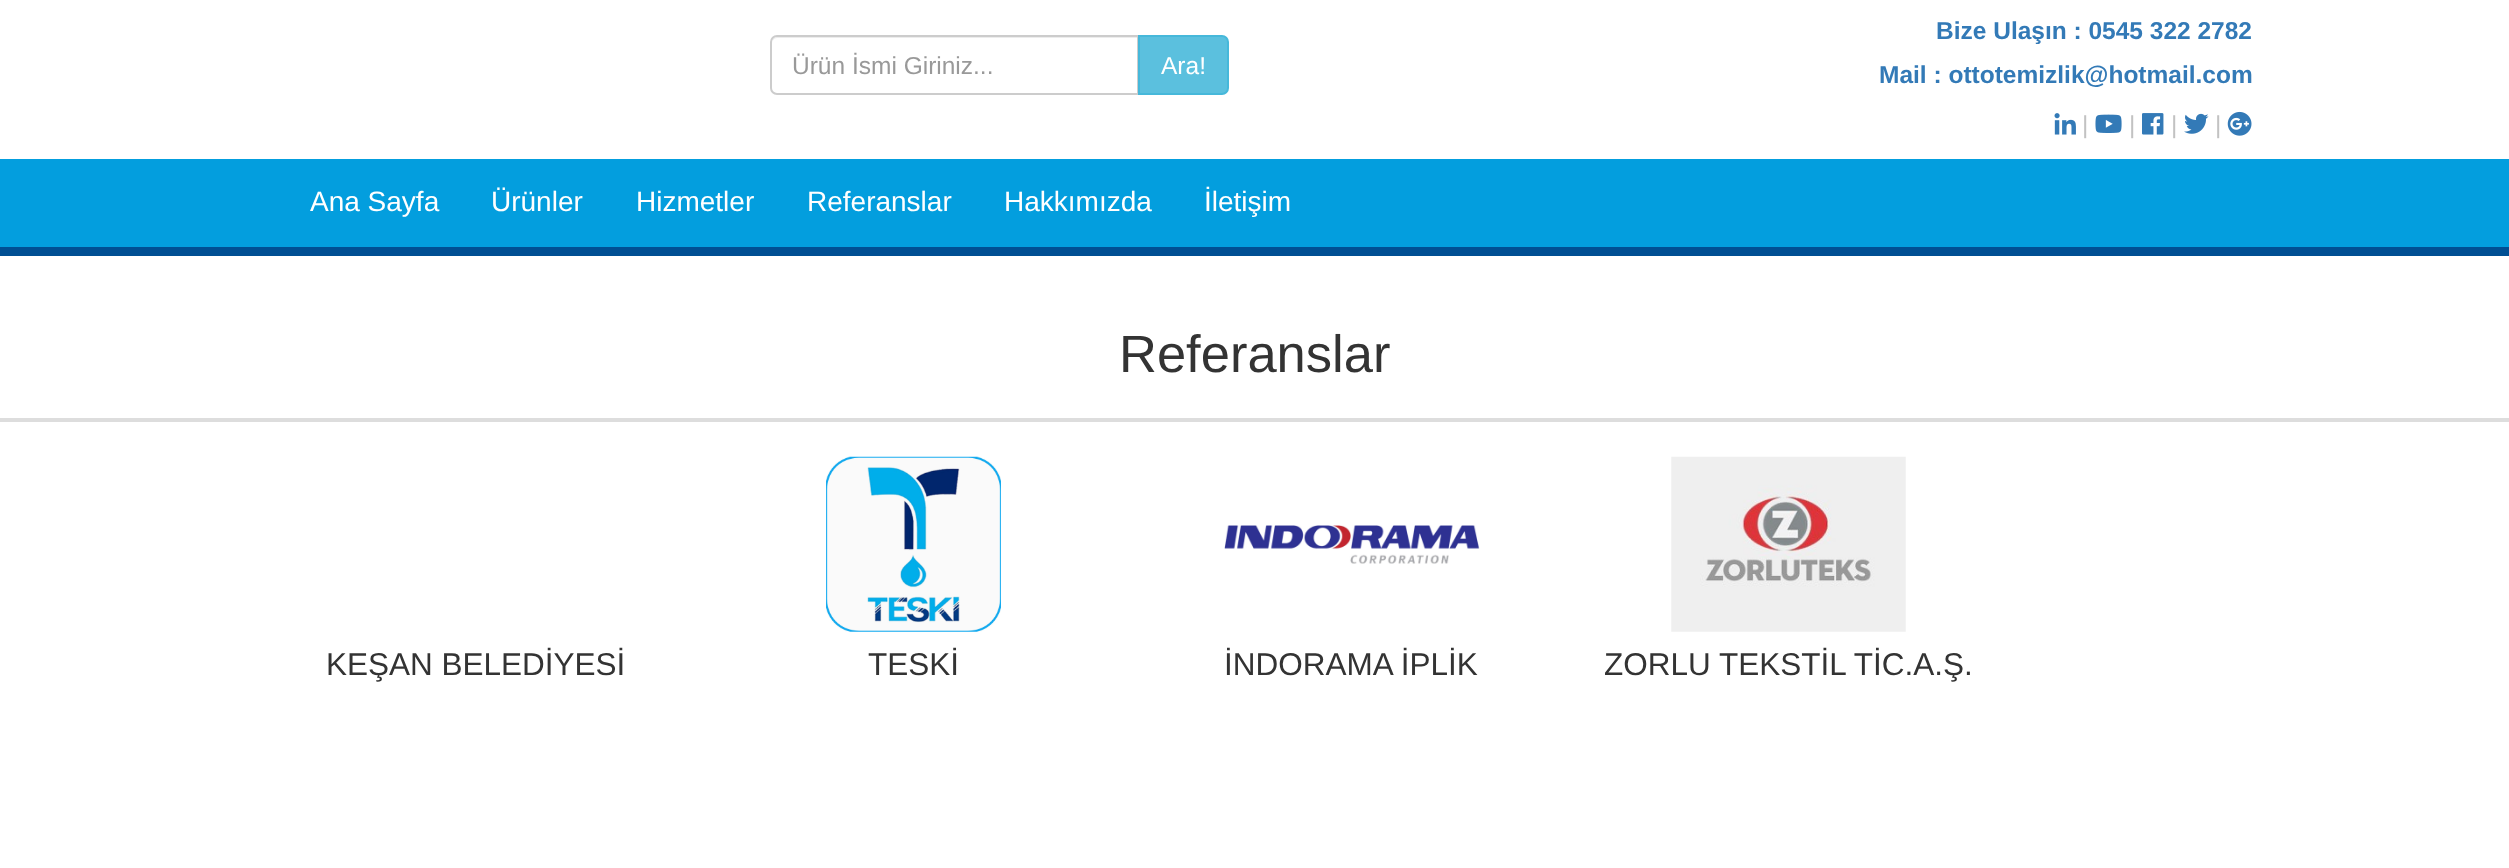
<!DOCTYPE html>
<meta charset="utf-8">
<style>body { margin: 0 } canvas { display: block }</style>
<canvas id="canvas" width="2509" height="868"></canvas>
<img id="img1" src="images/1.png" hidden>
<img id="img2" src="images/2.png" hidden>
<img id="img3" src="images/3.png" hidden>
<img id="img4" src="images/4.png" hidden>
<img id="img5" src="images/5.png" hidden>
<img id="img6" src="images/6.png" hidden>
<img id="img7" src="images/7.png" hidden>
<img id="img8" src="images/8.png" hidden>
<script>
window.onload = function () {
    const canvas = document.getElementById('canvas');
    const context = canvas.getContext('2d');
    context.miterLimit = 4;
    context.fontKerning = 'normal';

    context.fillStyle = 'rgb(255, 255, 255)';
    context.fillRect(0, 0, 2509, 868);
    context.fillStyle = 'rgb(236, 236, 236)';
    context.beginPath();
    context.moveTo(777, 38);
    context.lineTo(1138, 38);
    context.lineTo(1138, 37);
    context.lineTo(777, 37);
    context.bezierCurveTo(773, 37, 772, 41, 772, 44);
    context.bezierCurveTo(772, 41, 774, 38, 777, 38);
    context.closePath();
    context.fill();
    context.beginPath();
    context.roundRect(771, 36, 367, 58, [6, 0, 0, 6]);
    context.strokeStyle = 'rgb(204, 204, 204)';
    context.lineWidth = 2;
    context.stroke();
    context.fillStyle = 'rgb(91, 192, 222)';
    context.beginPath();
    context.roundRect(1139, 36, 89, 58, [0, 6, 6, 0]);
    context.fill();
    context.strokeStyle = 'rgb(70, 184, 218)';
    context.stroke();
    context.drawImage(document.getElementById('img1'), 2054, 113, 22, 22);
    context.drawImage(document.getElementById('img2'), 2095, 114, 27, 19);
    context.drawImage(document.getElementById('img3'), 2142, 113, 22, 22);
    context.drawImage(document.getElementById('img4'), 2184, 113, 25, 21);
    context.drawImage(document.getElementById('img5'), 2227, 111, 25, 25);
    context.fillStyle = 'rgb(3, 158, 222)';
    context.fillRect(0, 159, 2509, 88);
    context.fillStyle = 'rgb(0, 79, 147)';
    context.fillRect(0, 247, 2509, 9);
    context.fillStyle = 'rgb(221, 221, 221)';
    context.fillRect(0, 418, 2509, 4);
    context.drawImage(document.getElementById('img6'), 826, 456, 175, 176);
    context.drawImage(document.getElementById('img7'), 1224, 525, 256, 39);
    context.drawImage(document.getElementById('img8'), 1671, 456, 235, 176);
    context.font = '24.5px Liberation Sans';
    context.fillStyle = 'rgb(153, 153, 153)';
    context.fillText('Ürün İsmi Giriniz...', 792, 74);
    context.fillStyle = 'rgb(255, 255, 255)';
    context.fillText('Ara!', 1161, 74);
    context.font = 'bold 24.5px Liberation Sans';
    context.fillStyle = 'rgb(51, 122, 183)';
    context.fillText('Bize Ulaşın : 0545 322 2782', 1936, 39);
    context.fillText('Mail : ottotemizlik@hotmail.com', 1879, 83);
    context.font = '24.5px Liberation Sans';
    context.fillStyle = 'rgb(194, 194, 194)';
    context.fillText('|', 2082, 133);
    context.fillText('|', 2129, 133);
    context.fillText('|', 2171, 133);
    context.fillText('|', 2215, 133);
    context.font = '28px Liberation Sans';
    context.fillStyle = 'rgb(255, 255, 255)';
    context.fillText('Ana Sayfa', 310, 211);
    context.fillText('Ürünler', 491, 211);
    context.fillText('Hizmetler', 636, 211);
    context.fillText('Referanslar', 807, 211);
    context.fillText('Hakkımızda', 1004, 211);
    context.fillText('İletişim', 1204, 211);
    context.font = '52.5px Liberation Sans';
    context.fillStyle = 'rgb(51, 51, 51)';
    context.fillText('Referanslar', 1119, 372);
    context.font = '31.5px Liberation Sans';
    context.fillText('KEŞAN BELEDİYESİ', 326, 675);
    context.fillText('TESKİ', 868, 675);
    context.fillText('İNDORAMA İPLİK', 1224, 675);
    context.fillText('ZORLU TEKSTİL TİC.A.Ş.', 1604, 675);
};
</script>
